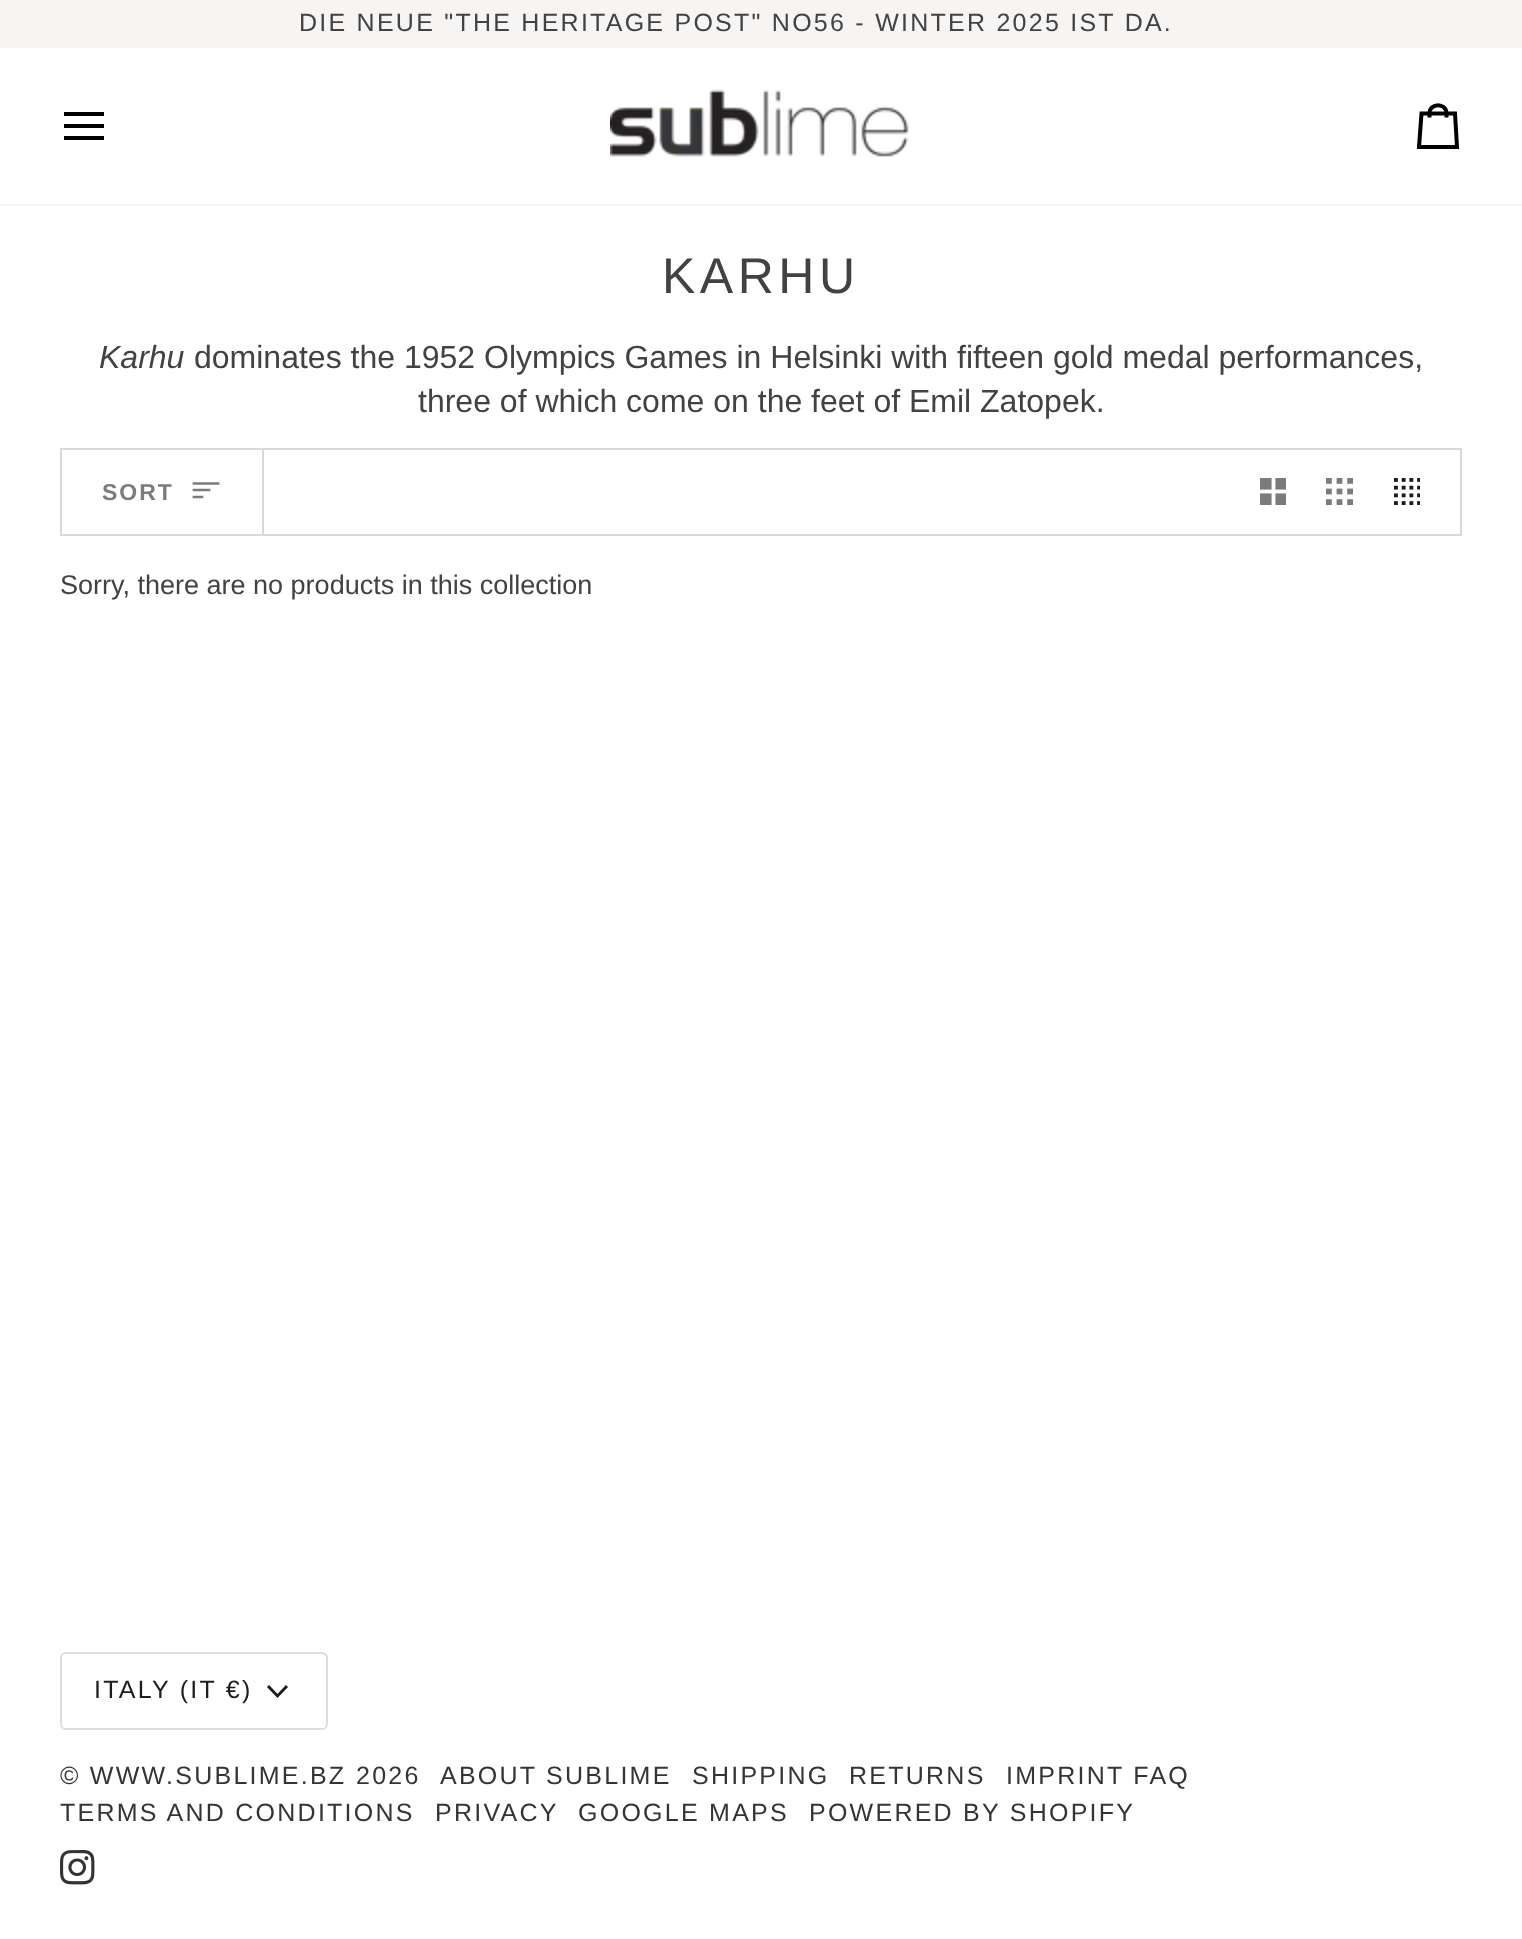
<!DOCTYPE html>
<meta charset="utf-8">
<style>body { margin: 0 } canvas { display: block }</style>
<canvas id="canvas" width="1522" height="1939"></canvas>
<img id="img1" src="images/1.png" hidden>
<img id="img2" src="images/2.png" hidden>
<img id="img3" src="images/3.png" hidden>
<img id="img4" src="images/4.png" hidden>
<img id="img5" src="images/5.png" hidden>
<script>
window.onload = function () {
    const canvas = document.getElementById('canvas');
    const context = canvas.getContext('2d');
    context.miterLimit = 4;
    context.fontKerning = 'normal';

    context.fillStyle = 'rgb(255, 255, 255)';
    context.fillRect(0, 0, 1522, 1939);
    context.fillStyle = 'rgb(247, 245, 244)';
    context.fillRect(0, 0, 1522, 48);
    context.fillRect(0, 204, 1522, 2);
    context.beginPath();
    context.moveTo(102, 114);
    context.lineTo(66, 114);
    context.moveTo(102, 126);
    context.lineTo(66, 126);
    context.moveTo(102, 138);
    context.lineTo(66, 138);
    context.strokeStyle = 'rgb(0, 0, 0)';
    context.lineWidth = 4;
    context.lineCap = 'square';
    context.stroke();
    context.drawImage(document.getElementById('img1'), 610, 89, 299, 68);
    context.beginPath();
    context.moveTo(1446.5, 117.5);
    context.lineTo(1446.5, 113.5);
    context.lineTo(1455, 113.5);
    context.lineTo(1457, 147);
    context.lineTo(1419, 147);
    context.lineTo(1421.5, 113.5);
    context.lineTo(1429.5, 113.5);
    context.bezierCurveTo(1429.5, 102.5, 1446.5, 102.5, 1446.5, 113.5);
    context.lineTo(1429.5, 113.5);
    context.lineTo(1429.5, 117.5);
    context.lineCap = 'butt';
    context.stroke();
    context.strokeStyle = 'rgb(217, 217, 217)';
    context.lineWidth = 2;
    context.strokeRect(61, 449, 1400, 86);
    context.fillStyle = 'rgb(217, 217, 217)';
    context.fillRect(262, 450, 2, 84);
    context.beginPath();
    context.moveTo(218, 483.5);
    context.lineTo(194, 483.5);
    context.moveTo(209, 490);
    context.lineTo(194, 490);
    context.moveTo(202, 497);
    context.lineTo(194, 497);
    context.strokeStyle = 'rgb(123, 123, 123)';
    context.lineWidth = 2.7;
    context.lineCap = 'square';
    context.stroke();
    context.drawImage(document.getElementById('img2'), 1260, 478, 26, 27);
    context.drawImage(document.getElementById('img3'), 1326, 478, 27, 27);
    context.drawImage(document.getElementById('img4'), 1394, 478, 26, 27);
    context.beginPath();
    context.roundRect(61, 1653, 266, 76, 5);
    context.strokeStyle = 'rgb(221, 221, 221)';
    context.lineWidth = 2;
    context.stroke();
    context.beginPath();
    context.moveTo(269, 1687);
    context.lineTo(277.5, 1696);
    context.lineTo(286, 1687);
    context.strokeStyle = 'rgb(29, 29, 29)';
    context.lineWidth = 2.9;
    context.stroke();
    context.drawImage(document.getElementById('img5'), 60, 1850, 35, 35);
    context.letterSpacing = '2.25px';
    context.font = '25px Liberation Sans';
    context.fillStyle = 'rgb(66, 66, 66)';
    context.fillText('DIE NEUE "THE HERITAGE POST" NO56 - WINTER 2025 IST DA.', 299, 31);
    context.letterSpacing = '4.5px';
    context.font = '50px Liberation Sans';
    context.fillText('KARHU', 662, 293);
    context.letterSpacing = '0px';
    context.font = 'italic 32px Liberation Sans';
    context.fillText('Karhu', 99, 368);
    context.font = '32px Liberation Sans';
    context.fillText('dominates the 1952 Olympics Games in Helsinki with fifteen gold medal performances,', 194, 368);
    context.fillText('three of which come on the feet of Emil Zatopek.', 418, 412);
    context.letterSpacing = '2px';
    context.font = 'bold 23px Liberation Sans';
    context.fillStyle = 'rgb(123, 123, 123)';
    context.fillText('SORT', 102, 500);
    context.letterSpacing = '0px';
    context.font = '27px Liberation Sans';
    context.fillStyle = 'rgb(66, 66, 66)';
    context.fillText('Sorry, there are no products in this collection', 60, 594);
    context.letterSpacing = '2.25px';
    context.font = '25px Liberation Sans';
    context.fillStyle = 'rgb(29, 29, 29)';
    context.fillText('ITALY (IT €)', 94, 1698);
    context.fillStyle = 'rgb(52, 52, 52)';
    context.fillText('© WWW.SUBLIME.BZ', 60, 1784);
    context.fillText('2026', 356, 1784);
    context.fillText('ABOUT SUBLIME', 440, 1784);
    context.fillText('SHIPPING', 692, 1784);
    context.fillText('RETURNS', 849, 1784);
    context.fillText('IMPRINT FAQ', 1006, 1784);
    context.fillText('TERMS AND CONDITIONS', 60, 1821);
    context.fillText('PRIVACY', 435, 1821);
    context.fillText('GOOGLE MAPS', 578, 1821);
    context.fillText('POWERED BY SHOPIFY', 809, 1821);
};
</script>
